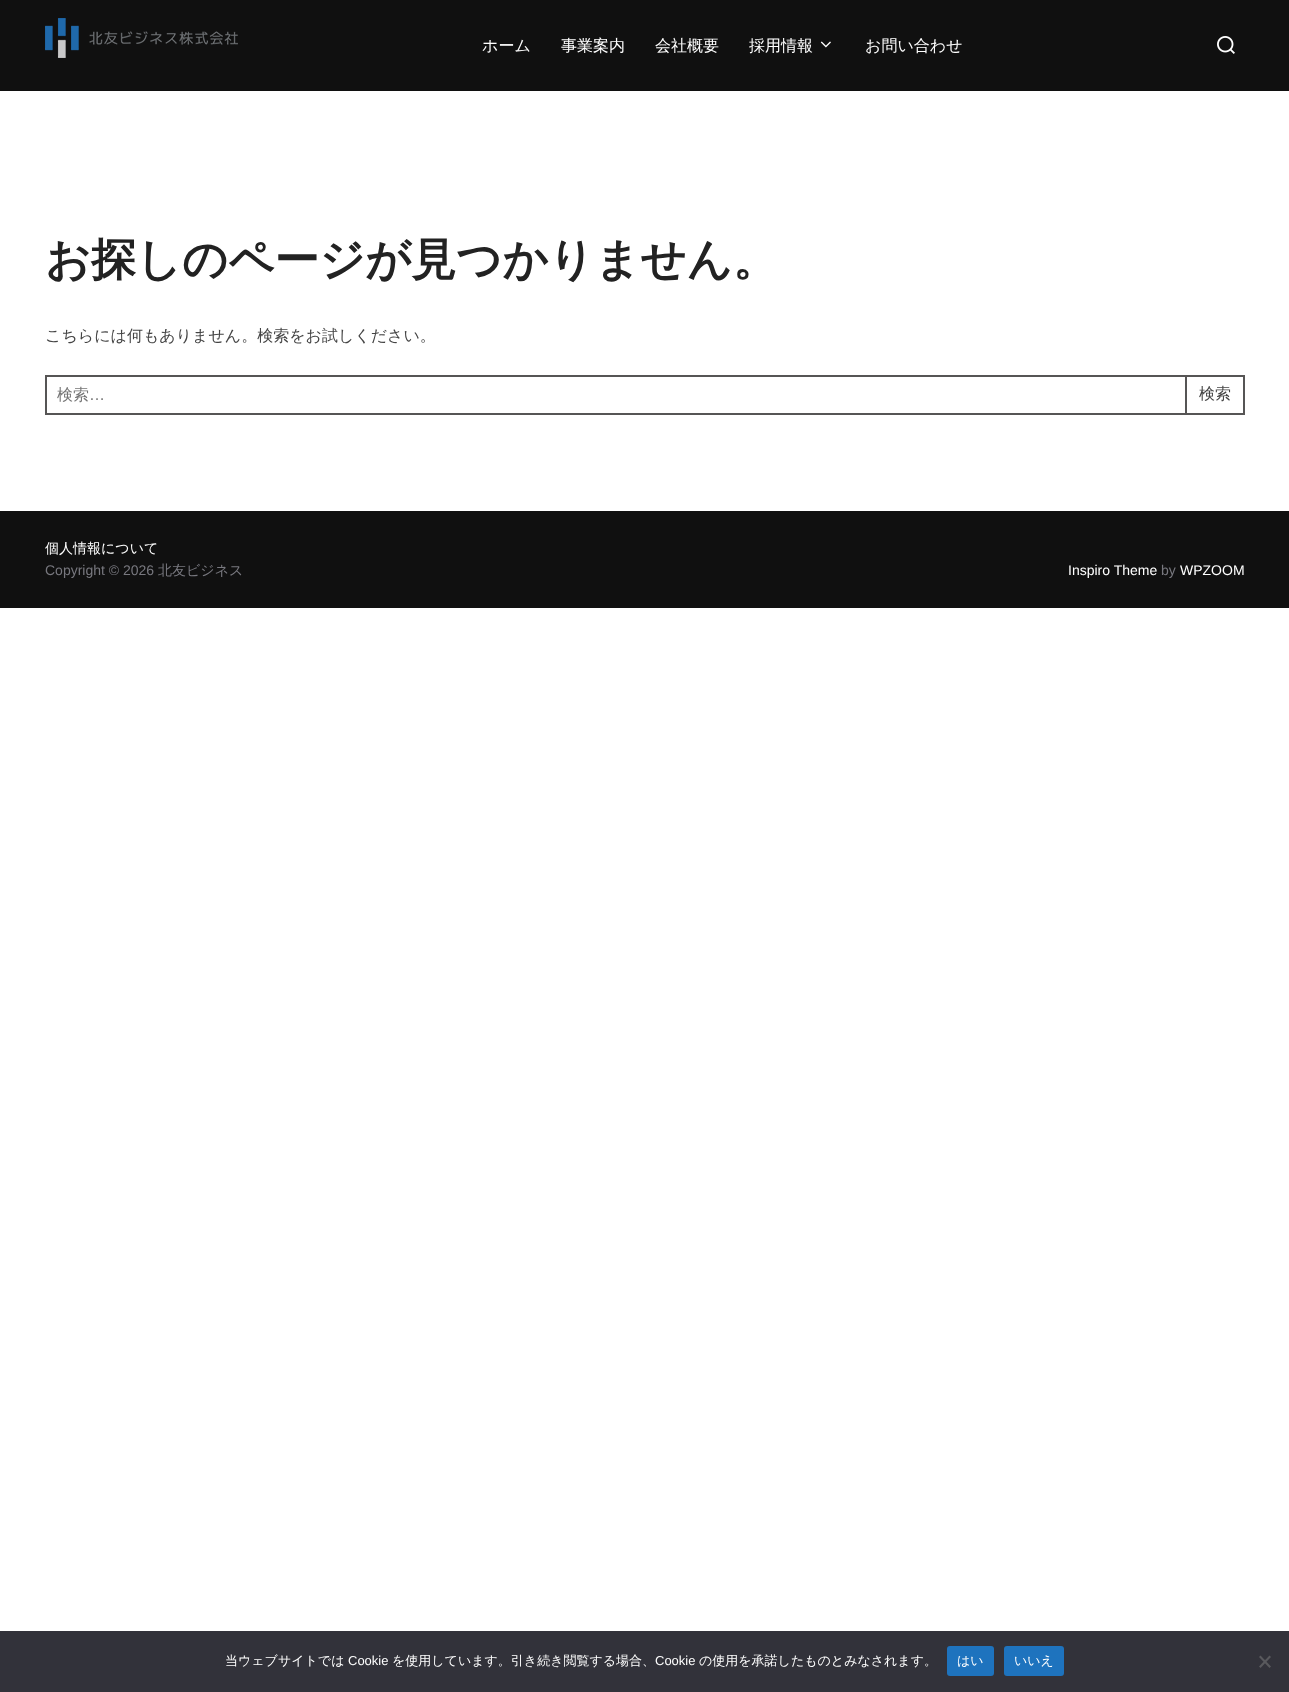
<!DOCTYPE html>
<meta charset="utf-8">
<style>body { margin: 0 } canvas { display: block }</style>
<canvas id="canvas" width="1289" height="1692"></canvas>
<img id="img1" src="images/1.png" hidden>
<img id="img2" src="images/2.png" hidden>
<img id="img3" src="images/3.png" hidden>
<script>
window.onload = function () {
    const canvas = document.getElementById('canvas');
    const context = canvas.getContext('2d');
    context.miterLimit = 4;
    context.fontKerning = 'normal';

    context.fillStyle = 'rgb(255, 255, 255)';
    context.fillRect(0, 0, 1289, 1692);
    context.fillStyle = 'rgb(16, 16, 16)';
    context.fillRect(0, 0, 1289, 91);
    context.drawImage(document.getElementById('img1'), 45, 18, 193, 40);
    context.drawImage(document.getElementById('img2'), 820, 41, 11, 7);
    context.drawImage(document.getElementById('img3'), 1217, 36, 18, 18);
    context.strokeStyle = 'rgb(86, 85, 85)';
    context.lineWidth = 2;
    context.strokeRect(46, 376, 1198, 38);
    context.strokeRect(1186, 376, 58, 38);
    context.fillRect(0, 511, 1289, 97);
    context.fillStyle = 'rgb(50, 50, 58)';
    context.fillRect(0, 1631, 1289, 61);
    context.fillStyle = 'rgb(30, 115, 190)';
    context.beginPath();
    context.roundRect(947, 1646, 47, 30, 3);
    context.fill();
    context.beginPath();
    context.roundRect(1004, 1646, 60, 30, 3);
    context.fill();
    context.fillStyle = 'rgb(89, 89, 93)';
    context.beginPath();
    context.moveTo(1269.5, 1655.5);
    context.lineTo(1271, 1657);
    context.lineTo(1260.5, 1668);
    context.lineTo(1259, 1666.5);
    context.closePath();
    context.fill();
    context.beginPath();
    context.moveTo(1259, 1657);
    context.lineTo(1260.5, 1655.5);
    context.lineTo(1271, 1666.5);
    context.lineTo(1269.5, 1668);
    context.closePath();
    context.fill();
    context.font = '500 16px WenQuanYi Zen Hei';
    context.fillStyle = 'rgb(255, 255, 255)';
    context.fillText('ホーム', 482, 51);
    context.fillText('事業案内', 561, 51);
    context.fillText('会社概要', 655, 51);
    context.fillText('採用情報', 749, 51);
    context.fillText('お問い合わせ', 865, 51);
    context.font = 'bold 45px WenQuanYi Zen Hei';
    context.fillStyle = 'rgb(34, 34, 34)';
    context.fillText('お探しのページが見つかりません。', 45, 275);
    context.font = '500 16px WenQuanYi Zen Hei';
    context.fillStyle = 'rgb(68, 68, 68)';
    context.fillText('こちらには何もありません。検索をお試しください。', 45, 341);
    context.fillStyle = 'rgb(117, 117, 117)';
    context.fillText('検索', 57, 400);
    context.font = '16px Liberation Sans';
    context.fillText('…', 89, 400);
    context.font = '500 16px WenQuanYi Zen Hei';
    context.fillStyle = 'rgb(68, 68, 68)';
    context.fillText('検索', 1199, 399);
    context.font = '500 14px WenQuanYi Zen Hei';
    context.fillStyle = 'rgb(255, 255, 255)';
    context.fillText('個人情報について', 45, 553);
    context.font = '14px Liberation Sans';
    context.fillStyle = 'rgb(120, 120, 127)';
    context.fillText('Copyright © 2026', 45, 575);
    context.font = '500 14px WenQuanYi Zen Hei';
    context.fillText('北友ビジネス', 158, 575);
    context.font = '14px Liberation Sans';
    context.fillStyle = 'rgb(255, 255, 255)';
    context.fillText('Inspiro Theme', 1068, 575);
    context.fillStyle = 'rgb(120, 120, 127)';
    context.fillText('by', 1161, 575);
    context.fillStyle = 'rgb(255, 255, 255)';
    context.fillText('WPZOOM', 1180, 575);
    context.font = '500 13px WenQuanYi Zen Hei';
    context.fillText('当ウェブサイトでは', 225, 1665);
    context.font = '13px Liberation Sans';
    context.fillText('Cookie', 348, 1665);
    context.font = '500 13px WenQuanYi Zen Hei';
    context.fillText('を使用しています。引き続き閲覧する場合、', 392, 1665);
    context.font = '13px Liberation Sans';
    context.fillText('Cookie', 655, 1665);
    context.font = '500 13px WenQuanYi Zen Hei';
    context.fillText('の使用を承諾したものとみなされます。', 699, 1665);
    context.fillText('はい', 957, 1665);
    context.fillText('いいえ', 1014, 1665);
};
</script>
